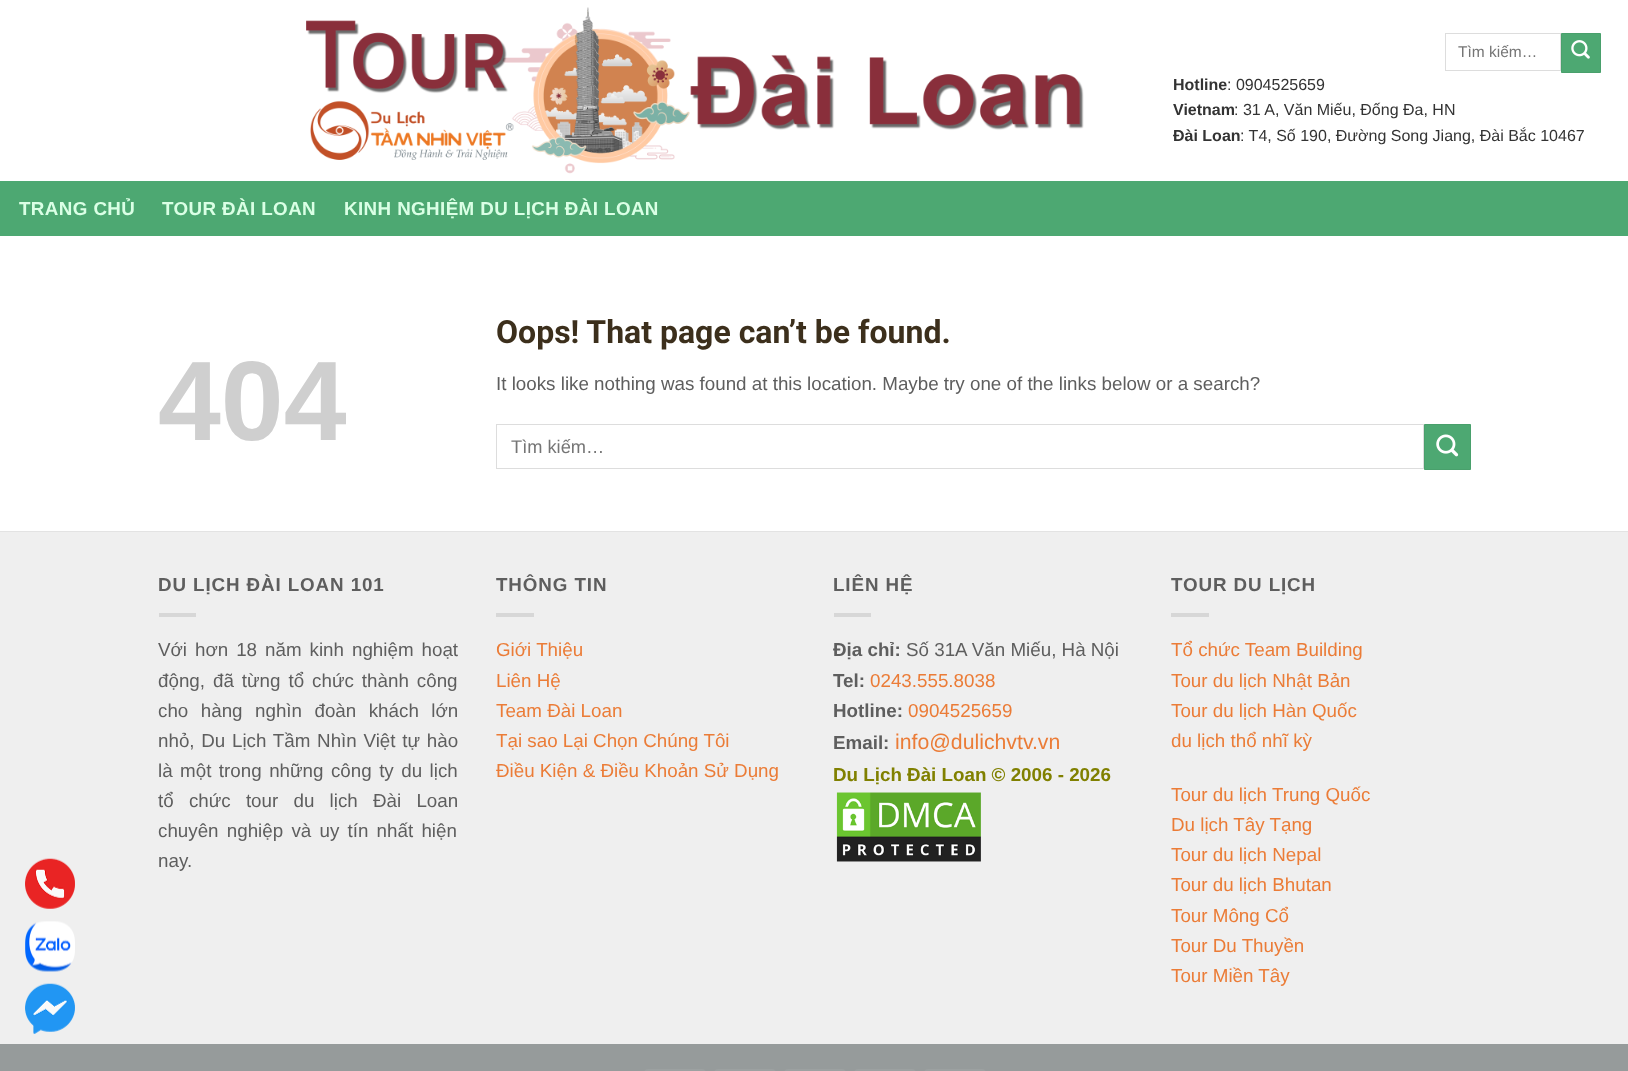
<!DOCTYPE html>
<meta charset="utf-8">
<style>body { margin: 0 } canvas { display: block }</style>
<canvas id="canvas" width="1628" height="1071"></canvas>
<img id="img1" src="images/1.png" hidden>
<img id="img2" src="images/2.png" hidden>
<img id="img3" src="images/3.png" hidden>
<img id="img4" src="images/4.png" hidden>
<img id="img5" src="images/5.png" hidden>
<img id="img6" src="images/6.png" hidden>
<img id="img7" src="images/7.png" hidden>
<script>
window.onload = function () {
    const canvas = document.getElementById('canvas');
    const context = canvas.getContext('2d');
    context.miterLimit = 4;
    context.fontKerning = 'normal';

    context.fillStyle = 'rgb(255, 255, 255)';
    context.fillRect(0, 0, 1628, 1071);
    context.drawImage(document.getElementById('img1'), 306, 7, 778, 167);
    context.strokeStyle = 'rgb(221, 221, 221)';
    context.strokeRect(1445.5, 33.5, 115, 37);
    context.fillStyle = 'rgb(77, 168, 114)';
    context.beginPath();
    context.rect(1561.5, 33.5, 39, 39);
    context.fill();
    context.strokeStyle = 'rgb(73, 160, 108)';
    context.stroke();
    context.drawImage(document.getElementById('img2'), 1571, 40, 19, 19);
    context.fillRect(0, 181, 1628, 55);
    context.strokeStyle = 'rgb(221, 221, 221)';
    context.strokeRect(496.5, 424.5, 927, 44);
    context.beginPath();
    context.rect(1424.5, 424.5, 46, 45);
    context.fill();
    context.strokeStyle = 'rgb(73, 160, 108)';
    context.stroke();
    context.drawImage(document.getElementById('img3'), 1436, 434, 23, 23);
    context.fillStyle = 'rgb(239, 239, 239)';
    context.fillRect(0, 532, 1628, 512);
    context.fillStyle = 'rgb(227, 227, 227)';
    context.fillRect(0, 531, 1628, 1);
    context.fillStyle = 'rgb(215, 215, 215)';
    context.fillRect(159, 613, 37, 4);
    context.fillRect(496, 613, 38, 4);
    context.fillRect(834, 613, 37, 4);
    context.drawImage(document.getElementById('img4'), 836, 792, 145, 70);
    context.fillRect(1171, 613, 38, 4);
    context.fillStyle = 'rgb(150, 155, 155)';
    context.fillRect(0, 1044, 1628, 27);
    context.fillStyle = 'rgb(156, 161, 161)';
    context.beginPath();
    context.roundRect(644, 1069, 62, 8, 6);
    context.fill();
    context.beginPath();
    context.roundRect(714, 1069, 62, 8, 6);
    context.fill();
    context.beginPath();
    context.roundRect(784, 1069, 62, 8, 6);
    context.fill();
    context.beginPath();
    context.roundRect(854, 1069, 62, 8, 6);
    context.fill();
    context.beginPath();
    context.roundRect(924, 1069, 62, 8, 6);
    context.fill();
    context.drawImage(document.getElementById('img5'), 25, 858, 50, 51);
    context.drawImage(document.getElementById('img6'), 25, 921, 50, 51);
    context.drawImage(document.getElementById('img7'), 25, 983, 50, 51);
    context.font = '15.5px Liberation Sans';
    context.fillStyle = 'rgb(117, 117, 117)';
    context.fillText('Tìm kiếm…', 1458, 57);
    context.font = 'bold 16px Liberation Sans';
    context.fillStyle = 'rgb(51, 51, 51)';
    context.fillText('Hotline', 1173, 90);
    context.font = '16px Liberation Sans';
    context.fillText(': 0904525659', 1227, 90);
    context.font = 'bold 16px Liberation Sans';
    context.fillText('Vietnam', 1173, 115);
    context.font = '16px Liberation Sans';
    context.fillText(': 31 A, Văn Miếu, Đống Đa, HN', 1234, 115);
    context.font = 'bold 16px Liberation Sans';
    context.fillText('Đài Loan', 1173, 141);
    context.font = '16px Liberation Sans';
    context.fillText(': T4, Số 190, Đường Song Jiang, Đài Bắc 10467', 1240, 141);
    context.letterSpacing = '0.4px';
    context.font = 'bold 18.8px Liberation Sans';
    context.fillStyle = 'rgb(218, 255, 229)';
    context.fillText('TRANG CHỦ', 19, 215);
    context.fillText('TOUR ĐÀI LOAN', 162, 215);
    context.fillText('KINH NGHIỆM DU LỊCH ĐÀI LOAN', 344, 215);
    context.letterSpacing = '0px';
    context.font = 'bold 113px Liberation Sans';
    context.fillStyle = 'rgb(207, 207, 207)';
    context.fillText('404', 158, 440);
    context.font = 'bold 32px Roboto';
    context.fillStyle = 'rgb(60, 47, 28)';
    context.fillText('Oops! That page can’t be found.', 496, 343);
    context.font = '18.8px Liberation Sans';
    context.fillStyle = 'rgb(94, 94, 94)';
    context.fillText('It looks like nothing was found at this location. Maybe try one of the links below or a search?', 496, 390);
    context.font = '18.25px Liberation Sans';
    context.fillStyle = 'rgb(117, 117, 117)';
    context.fillText('Tìm kiếm…', 511, 453);
    context.letterSpacing = '0.9px';
    context.font = 'bold 18.8px Liberation Sans';
    context.fillStyle = 'rgb(94, 94, 94)';
    context.fillText('DU LỊCH ĐÀI LOAN 101', 158, 591);
    context.letterSpacing = '0px';
    context.wordSpacing = '2.75px';
    context.font = '18.8px Liberation Sans';
    context.fillText('Với hơn 18 năm kinh nghiệm hoạt', 158, 656);
    context.fillText('động, đã từng tổ chức thành công', 158, 687);
    context.wordSpacing = '7.25px';
    context.fillText('cho hàng nghìn đoàn khách lớn', 158, 717);
    context.wordSpacing = '1.5px';
    context.fillText('nhỏ, Du Lịch Tầm Nhìn Việt tự hào', 158, 747);
    context.wordSpacing = '2.25px';
    context.fillText('là một trong những công ty du lịch', 158, 777);
    context.wordSpacing = '10px';
    context.fillText('tổ chức tour du lịch Đài Loan', 158, 807);
    context.wordSpacing = '3px';
    context.fillText('chuyên nghiệp và uy tín nhất hiện', 158, 837);
    context.wordSpacing = '0px';
    context.fillText('nay.', 158, 867);
    context.letterSpacing = '0.9px';
    context.font = 'bold 18.8px Liberation Sans';
    context.fillText('THÔNG TIN', 496, 591);
    context.letterSpacing = '0px';
    context.font = '18.8px Liberation Sans';
    context.fillStyle = 'rgb(235, 124, 55)';
    context.fillText('Giới Thiệu', 496, 656);
    context.fillText('Liên Hệ', 496, 687);
    context.fillText('Team Đài Loan', 496, 717);
    context.fillText('Tại sao Lại Chọn Chúng Tôi', 496, 747);
    context.fillText('Điều Kiện & Điều Khoản Sử Dụng', 496, 777);
    context.letterSpacing = '0.9px';
    context.font = 'bold 18.8px Liberation Sans';
    context.fillStyle = 'rgb(94, 94, 94)';
    context.fillText('LIÊN HỆ', 833, 591);
    context.letterSpacing = '0px';
    context.fillText('Địa chỉ:', 833, 656);
    context.font = '18.8px Liberation Sans';
    context.fillText('Số 31A Văn Miếu, Hà Nội', 906, 656);
    context.font = 'bold 18.8px Liberation Sans';
    context.fillText('Tel:', 833, 687);
    context.font = '18.8px Liberation Sans';
    context.fillStyle = 'rgb(235, 124, 55)';
    context.fillText('0243.555.8038', 870, 687);
    context.font = 'bold 18.8px Liberation Sans';
    context.fillStyle = 'rgb(94, 94, 94)';
    context.fillText('Hotline:', 833, 717);
    context.font = '18.8px Liberation Sans';
    context.fillStyle = 'rgb(235, 124, 55)';
    context.fillText('0904525659', 908, 717);
    context.font = 'bold 18.8px Liberation Sans';
    context.fillStyle = 'rgb(94, 94, 94)';
    context.fillText('Email:', 833, 749);
    context.font = '21.25px Liberation Sans';
    context.fillStyle = 'rgb(235, 124, 55)';
    context.fillText('info@dulichvtv.vn', 895, 749);
    context.font = 'bold 18.8px Liberation Sans';
    context.fillStyle = 'rgb(128, 128, 0)';
    context.fillText('Du Lịch Đài Loan © 2006 - 2026', 833, 781);
    context.letterSpacing = '0.9px';
    context.fillStyle = 'rgb(94, 94, 94)';
    context.fillText('TOUR DU LỊCH', 1171, 591);
    context.letterSpacing = '0px';
    context.font = '18.8px Liberation Sans';
    context.fillStyle = 'rgb(235, 124, 55)';
    context.fillText('Tổ chức Team Building', 1171, 656);
    context.fillText('Tour du lịch Nhật Bản', 1171, 687);
    context.fillText('Tour du lịch Hàn Quốc', 1171, 717);
    context.fillText('du lịch thổ nhĩ kỳ', 1171, 747);
    context.fillText('Tour du lịch Trung Quốc', 1171, 801);
    context.fillText('Du lịch Tây Tạng', 1171, 831);
    context.fillText('Tour du lịch Nepal', 1171, 861);
    context.fillText('Tour du lịch Bhutan', 1171, 891);
    context.fillText('Tour Mông Cổ', 1171, 922);
    context.fillText('Tour Du Thuyền', 1171, 952);
    context.fillText('Tour Miền Tây', 1171, 982);
};
</script>
